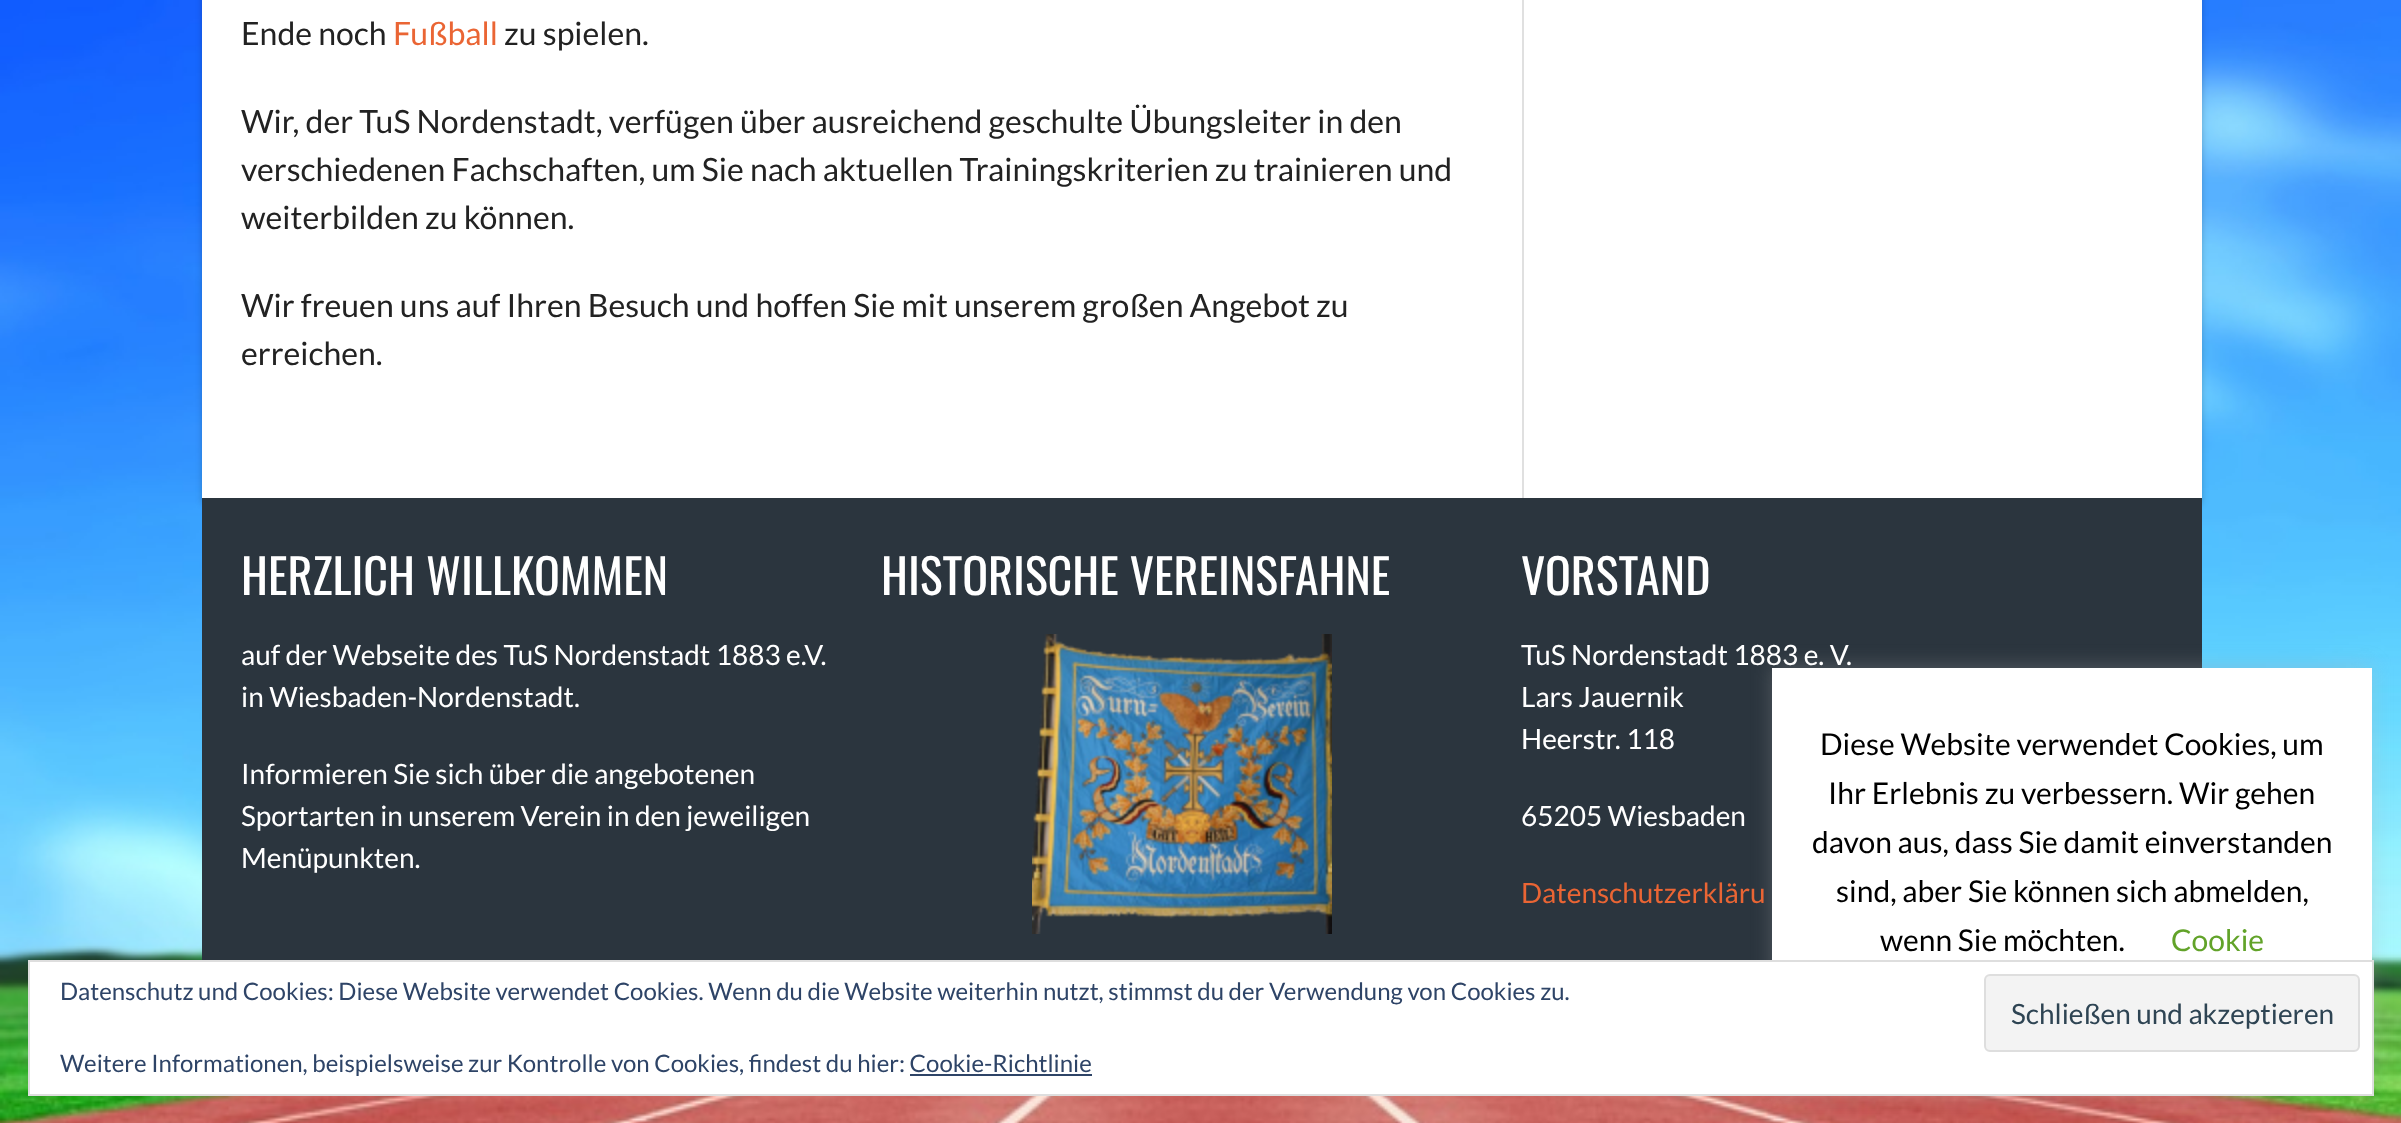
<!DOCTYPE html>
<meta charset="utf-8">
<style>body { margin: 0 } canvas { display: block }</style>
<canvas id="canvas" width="2401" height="1123"></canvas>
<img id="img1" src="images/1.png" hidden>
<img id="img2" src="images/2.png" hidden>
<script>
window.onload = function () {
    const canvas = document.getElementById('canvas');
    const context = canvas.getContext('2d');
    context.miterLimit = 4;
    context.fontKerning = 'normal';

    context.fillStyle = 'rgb(255, 255, 255)';
    context.fillRect(0, 0, 2401, 1123);
    context.drawImage(document.getElementById('img1'), 0, 0, 2401, 1123);
    context.fillStyle = 'rgba(0, 0, 0, 0.2)';
    context.filter = 'blur(3px)';
    context.beginPath();
    context.rect(202, -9, 2000, 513);
    context.fill();
    context.filter = 'none';
    context.fillStyle = 'rgb(255, 255, 255)';
    context.fillRect(202, 0, 2000, 498);
    context.fillStyle = 'rgb(224, 224, 224)';
    context.fillRect(1522, 0, 2, 498);
    context.fillStyle = 'rgb(43, 53, 62)';
    context.fillRect(202, 498, 2000, 462);
    context.drawImage(document.getElementById('img2'), 1032, 634, 300, 300);
    context.fillStyle = 'rgba(172, 171, 171, 0.3)';
    context.filter = 'blur(10px)';
    context.beginPath();
    context.rect(1772, 666, 600, 426);
    context.fill();
    context.filter = 'none';
    context.fillStyle = 'rgb(255, 255, 255)';
    context.fillRect(1772, 668, 600, 292);
    context.beginPath();
    context.rect(29, 961, 2344, 134);
    context.fill();
    context.strokeStyle = 'rgb(222, 222, 222)';
    context.lineWidth = 2;
    context.stroke();
    context.fillStyle = 'rgb(243, 243, 243)';
    context.beginPath();
    context.roundRect(1985, 975, 374, 76, 5);
    context.fill();
    context.stroke();
    context.fillStyle = 'rgb(46, 68, 103)';
    context.fillRect(910, 1074, 182, 2);
    context.font = '32px Lato';
    context.fillStyle = 'rgb(34, 34, 34)';
    context.fillText('Ende noch', 241, 45);
    context.fillStyle = 'rgb(234, 101, 52)';
    context.fillText('Fußball', 393, 45);
    context.fillStyle = 'rgb(34, 34, 34)';
    context.fillText('zu spielen.', 504, 45);
    context.fillText('Wir, der TuS Nordenstadt, verfügen über ausreichend geschulte Übungsleiter in den', 241, 133);
    context.fillText('verschiedenen Fachschaften, um Sie nach aktuellen Trainingskriterien zu trainieren und', 241, 181);
    context.fillText('weiterbilden zu können.', 241, 229);
    context.fillText('Wir freuen uns auf Ihren Besuch und hoffen Sie mit unserem großen Angebot zu', 241, 317);
    context.fillText('erreichen.', 241, 365);
    context.font = '48px Oswald';
    context.fillStyle = 'rgb(255, 255, 255)';
    context.fillText('HERZLICH WILLKOMMEN', 241, 595);
    context.font = '28px Lato';
    context.fillText('auf der Webseite des TuS Nordenstadt 1883 e.V.', 241, 665);
    context.fillText('in Wiesbaden-Nordenstadt.', 241, 707);
    context.fillText('Informieren Sie sich über die angebotenen', 241, 784);
    context.fillText('Sportarten in unserem Verein in den jeweiligen', 241, 826);
    context.fillText('Menüpunkten.', 241, 868);
    context.font = '48px Oswald';
    context.fillText('HISTORISCHE VEREINSFAHNE', 881, 595);
    context.fillText('VORSTAND', 1521, 595);
    context.font = '28px Lato';
    context.fillText('TuS Nordenstadt 1883 e. V.', 1521, 665);
    context.fillText('Lars Jauernik', 1521, 707);
    context.fillText('Heerstr. 118', 1521, 749);
    context.fillText('65205 Wiesbaden', 1521, 826);
    context.fillStyle = 'rgb(234, 101, 52)';
    context.fillText('Datenschutzerkläru', 1521, 903);
    context.font = '30px Lato';
    context.fillStyle = 'rgb(0, 0, 0)';
    context.fillText('Diese Website verwendet Cookies, um', 1820, 755);
    context.fillText('Ihr Erlebnis zu verbessern. Wir gehen', 1828, 804);
    context.fillText('davon aus, dass Sie damit einverstanden', 1812, 853);
    context.fillText('sind, aber Sie können sich abmelden,', 1836, 902);
    context.fillText('wenn Sie möchten.', 1880, 951);
    context.fillStyle = 'rgb(98, 163, 41)';
    context.fillText('Cookie', 2171, 951);
    context.font = '24px Lato';
    context.fillStyle = 'rgb(46, 68, 103)';
    context.fillText('Datenschutz und Cookies: Diese Website verwendet Cookies. Wenn du die Website weiterhin nutzt, stimmst du der Verwendung von Cookies zu.', 60, 1000);
    context.font = '28px Lato';
    context.fillStyle = 'rgb(46, 68, 83)';
    context.fillText('Schließen und akzeptieren', 2011, 1024);
    context.font = '24px Lato';
    context.fillStyle = 'rgb(46, 68, 103)';
    context.fillText('Weitere Informationen, beispielsweise zur Kontrolle von Cookies, findest du hier: Cookie-Richtlinie', 60, 1072);
};
</script>
